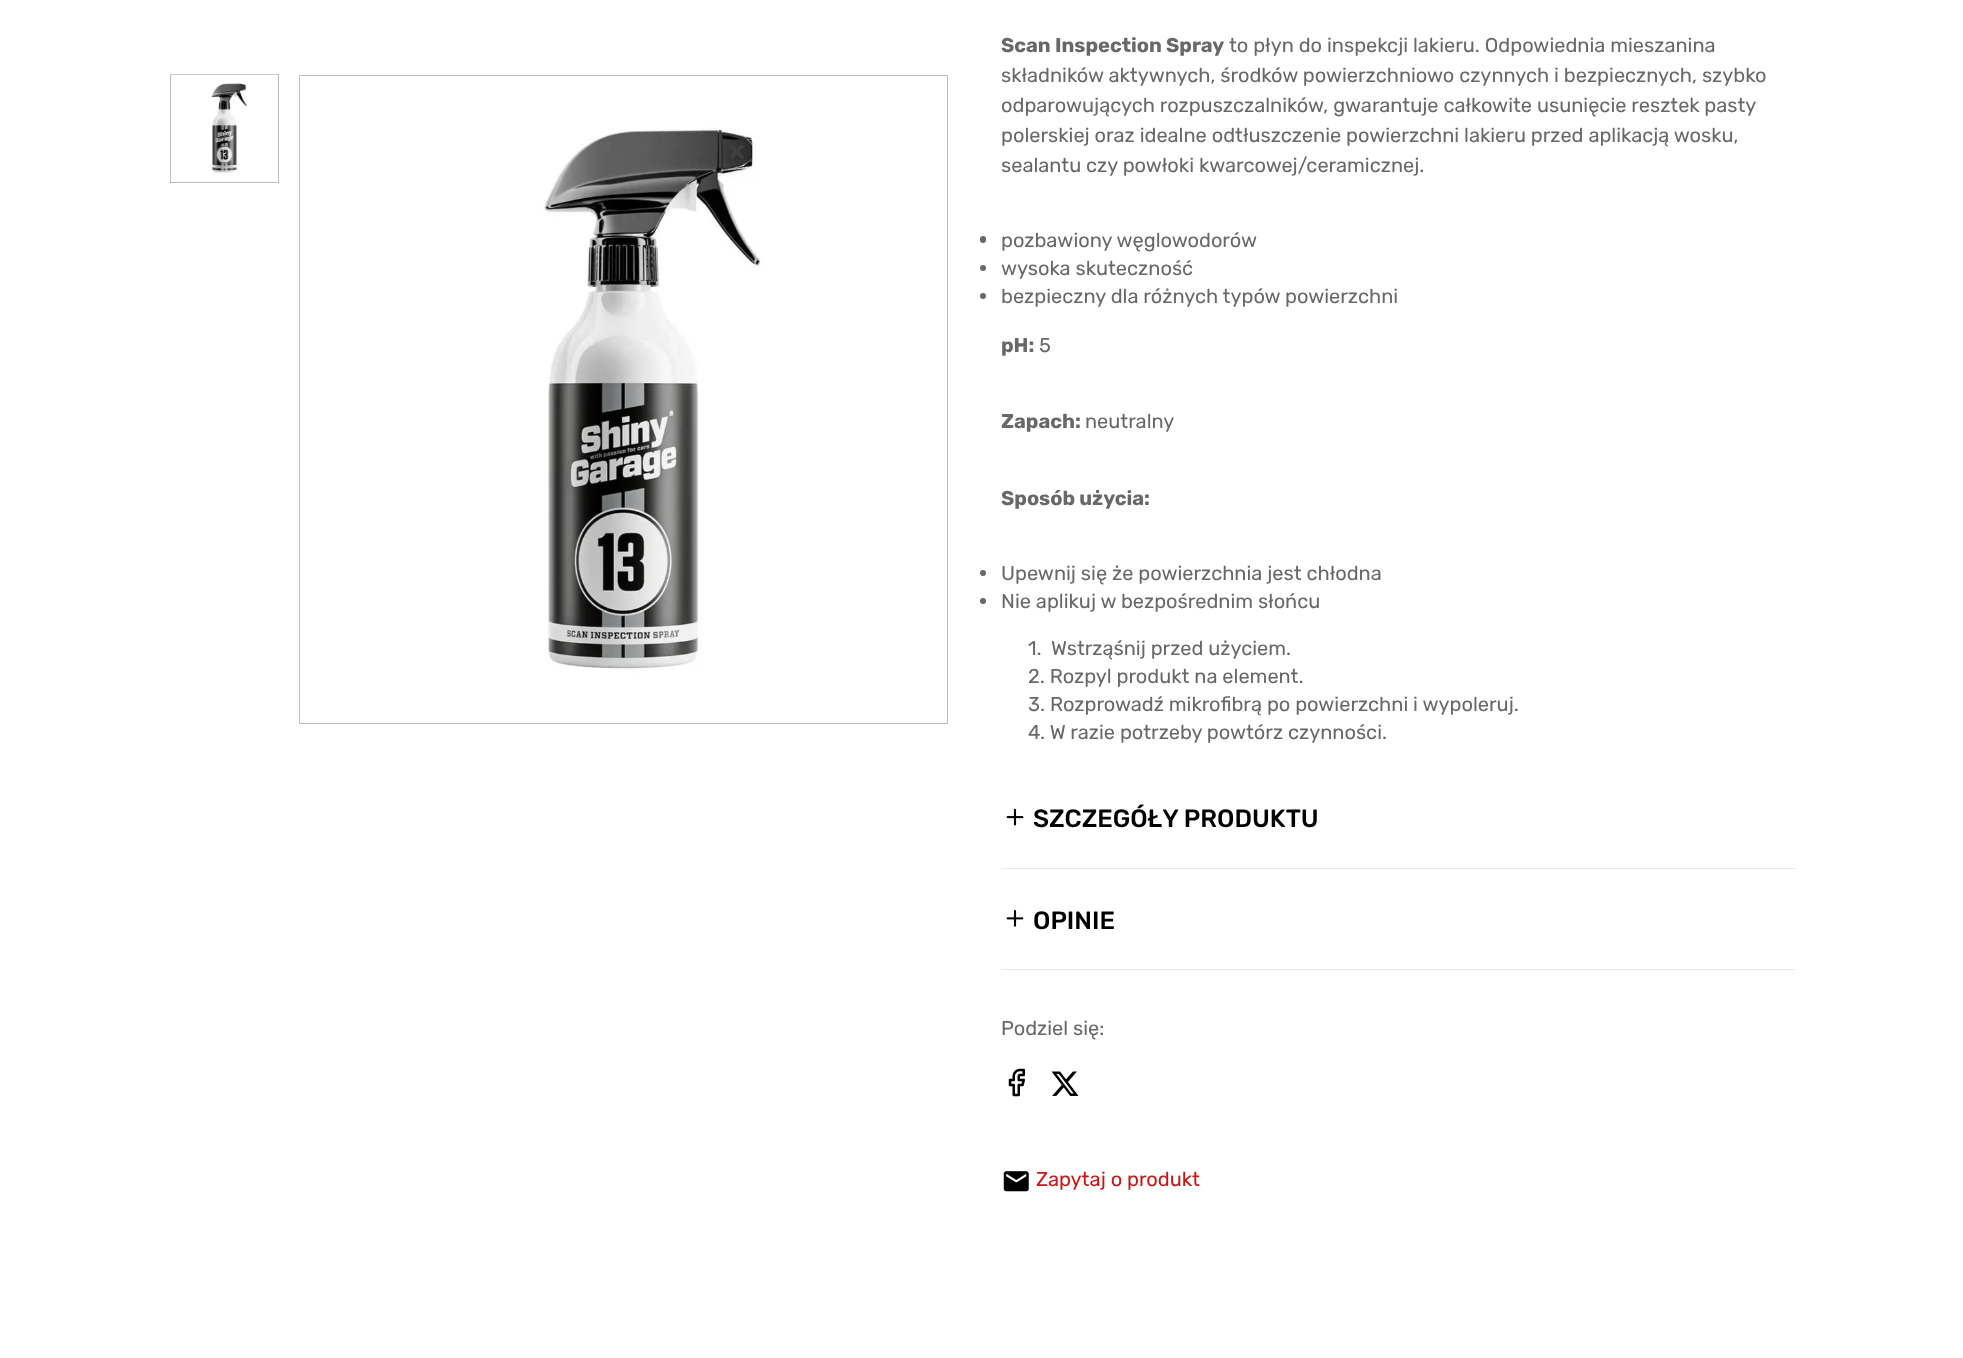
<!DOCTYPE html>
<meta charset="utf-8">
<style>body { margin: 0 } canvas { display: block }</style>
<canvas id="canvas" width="1963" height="1358"></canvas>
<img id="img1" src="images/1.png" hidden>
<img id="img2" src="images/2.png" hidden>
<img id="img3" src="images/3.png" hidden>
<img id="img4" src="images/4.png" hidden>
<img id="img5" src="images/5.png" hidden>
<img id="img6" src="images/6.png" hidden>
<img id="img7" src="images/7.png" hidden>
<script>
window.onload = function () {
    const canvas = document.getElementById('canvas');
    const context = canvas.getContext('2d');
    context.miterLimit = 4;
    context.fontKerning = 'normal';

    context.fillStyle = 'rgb(255, 255, 255)';
    context.fillRect(0, 0, 1963, 1358);
    context.strokeStyle = 'rgb(189, 189, 189)';
    context.strokeRect(170.5, 74.5, 108, 108);
    context.drawImage(document.getElementById('img1'), 171, 74, 107, 99);
    context.strokeRect(299.5, 75.5, 648, 648);
    context.drawImage(document.getElementById('img2'), 299, 76, 462, 646);
    context.fillStyle = 'rgb(104, 104, 104)';
    context.beginPath();
    context.roundRect(980, 236, 6, 7, 3);
    context.fill();
    context.beginPath();
    context.arc(983, 268, 3, 0, 2 * Math.PI);
    context.fill();
    context.beginPath();
    context.arc(983, 296, 3, 0, 2 * Math.PI);
    context.fill();
    context.beginPath();
    context.arc(983, 573, 3, 0, 2 * Math.PI);
    context.fill();
    context.beginPath();
    context.arc(983, 601, 3, 0, 2 * Math.PI);
    context.fill();
    context.fillStyle = 'rgb(233, 233, 233)';
    context.fillRect(1001, 868, 794, 1);
    context.drawImage(document.getElementById('img3'), 1006, 808, 18, 18);
    context.fillRect(1001, 969, 794, 1);
    context.drawImage(document.getElementById('img4'), 1006, 910, 18, 17);
    context.drawImage(document.getElementById('img5'), 1008, 1068, 17, 29);
    context.drawImage(document.getElementById('img6'), 1051, 1071, 28, 25);
    context.drawImage(document.getElementById('img7'), 1003, 1171, 26, 21);
    context.font = 'bold 20px Rubik';
    context.fillStyle = 'rgb(104, 104, 104)';
    context.fillText('Scan Inspection Spray', 1001, 52);
    context.font = '20px Rubik';
    context.fillText('to płyn do inspekcji lakieru. Odpowiednia mieszanina', 1229, 52);
    context.fillText('składników aktywnych, środków powierzchniowo czynnych i bezpiecznych, szybko', 1001, 82);
    context.fillText('odparowujących rozpuszczalników, gwarantuje całkowite usunięcie resztek pasty', 1001, 112);
    context.fillText('polerskiej oraz idealne odtłuszczenie powierzchni lakieru przed aplikacją wosku,', 1001, 142);
    context.fillText('sealantu czy powłoki kwarcowej/ceramicznej.', 1001, 172);
    context.fillText('pozbawiony węglowodorów', 1001, 247);
    context.fillText('wysoka skuteczność', 1001, 275);
    context.fillText('bezpieczny dla różnych typów powierzchni', 1001, 303);
    context.font = 'bold 20px Rubik';
    context.fillText('pH:', 1001, 352);
    context.font = '20px Rubik';
    context.fillText('5', 1039, 352);
    context.font = 'bold 20px Rubik';
    context.fillText('Zapach:', 1001, 428);
    context.font = '20px Rubik';
    context.fillText('neutralny', 1085, 428);
    context.font = 'bold 20px Rubik';
    context.fillText('Sposób użycia:', 1001, 505);
    context.font = '20px Rubik';
    context.fillText('Upewnij się że powierzchnia jest chłodna', 1001, 580);
    context.fillText('Nie aplikuj w bezpośrednim słońcu', 1001, 608);
    context.fillText('1.', 1028, 655);
    context.fillText('Wstrząśnij przed użyciem.', 1051, 655);
    context.fillText('2. Rozpyl produkt na element.', 1028, 683);
    context.fillText('3. Rozprowadź mikrofibrą po powierzchni i wypoleruj.', 1028, 711);
    context.fillText('4. W razie potrzeby powtórz czynności.', 1028, 739);
    context.font = '500 25px Rubik';
    context.fillStyle = 'rgb(0, 0, 0)';
    context.fillText('SZCZEGÓŁY PRODUKTU', 1033, 827);
    context.fillText('OPINIE', 1033, 929);
    context.font = '20px Rubik';
    context.fillStyle = 'rgb(104, 104, 104)';
    context.fillText('Podziel się:', 1001, 1035);
    context.fillStyle = 'rgb(206, 19, 19)';
    context.fillText('Zapytaj o produkt', 1036, 1186);
};
</script>
